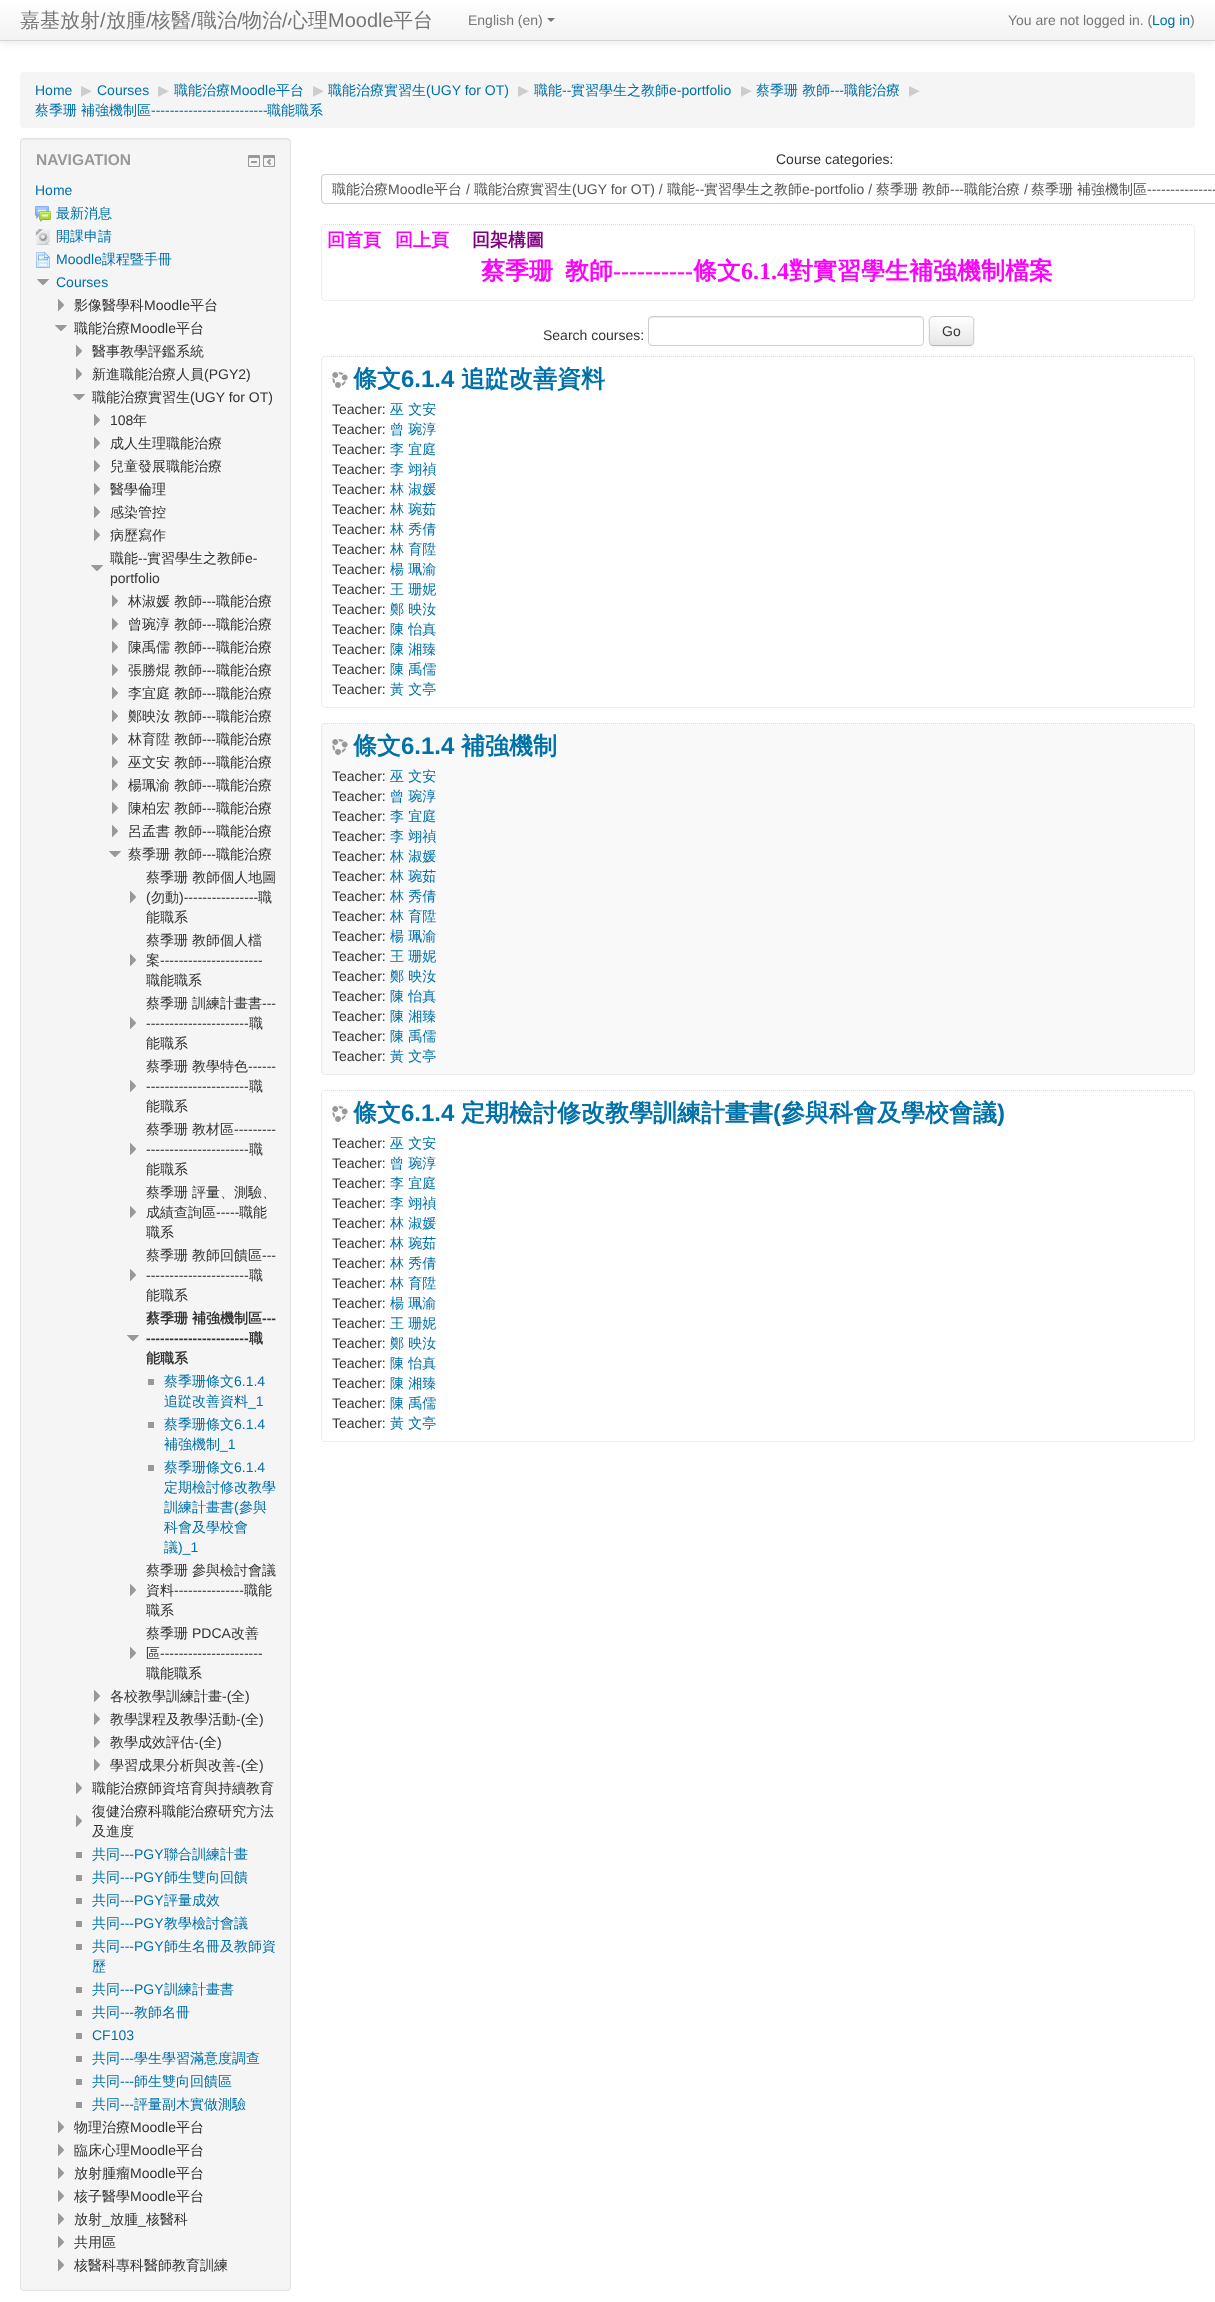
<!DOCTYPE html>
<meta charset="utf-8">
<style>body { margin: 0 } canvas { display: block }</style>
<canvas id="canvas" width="1215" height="2302"></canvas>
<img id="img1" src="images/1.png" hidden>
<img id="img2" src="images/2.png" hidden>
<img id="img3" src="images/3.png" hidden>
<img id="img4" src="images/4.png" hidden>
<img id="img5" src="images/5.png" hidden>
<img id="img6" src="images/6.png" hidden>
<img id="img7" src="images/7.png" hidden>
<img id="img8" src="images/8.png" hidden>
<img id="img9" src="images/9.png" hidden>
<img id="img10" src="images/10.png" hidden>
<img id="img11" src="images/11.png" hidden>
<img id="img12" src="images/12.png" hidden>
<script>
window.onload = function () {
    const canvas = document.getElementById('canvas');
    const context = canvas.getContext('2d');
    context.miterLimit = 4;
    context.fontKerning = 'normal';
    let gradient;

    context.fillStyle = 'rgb(255, 255, 255)';
    context.fillRect(0, 0, 1215, 2302);
    context.fillStyle = 'rgba(0, 0, 0, 0.1)';
    context.filter = 'blur(5px)';
    context.beginPath();
    context.rect(0, 1, 1215, 41);
    context.fill();
    context.filter = 'none';
    gradient = context.createLinearGradient(608, 0, 608, 40);
    gradient.addColorStop(0, 'rgb(255, 255, 255)');
    gradient.addColorStop(1, 'rgb(242, 242, 242)');
    context.fillStyle = gradient;
    context.fillRect(0, 0, 1215, 40);
    context.fillStyle = 'rgb(212, 212, 212)';
    context.fillRect(0, 40, 1215, 1);
    context.fillStyle = 'rgb(119, 119, 119)';
    context.beginPath();
    context.moveTo(547, 18);
    context.lineTo(555, 18);
    context.lineTo(551, 22);
    context.closePath();
    context.fill();
    context.fillStyle = 'rgb(245, 245, 245)';
    context.beginPath();
    context.roundRect(20, 72, 1175, 56, 4);
    context.fill();
    context.beginPath();
    context.roundRect(20, 138, 271, 2153, 4);
    context.fill();
    context.fillStyle = 'rgb(233, 233, 233)';
    context.beginPath();
    context.moveTo(24, 140);
    context.lineTo(287, 140);
    context.bezierCurveTo(289, 140, 290, 141, 290, 143);
    context.lineTo(290, 142);
    context.bezierCurveTo(290, 140, 289, 139, 287, 139);
    context.lineTo(24, 139);
    context.bezierCurveTo(22, 139, 21, 140, 21, 142);
    context.lineTo(21, 143);
    context.bezierCurveTo(21, 141, 22, 140, 24, 140);
    context.closePath();
    context.fill();
    context.beginPath();
    context.roundRect(20.5, 138.5, 270, 2152, 3.5);
    context.strokeStyle = 'rgb(227, 227, 227)';
    context.stroke();
    context.drawImage(document.getElementById('img1'), 248, 155, 12, 12);
    context.drawImage(document.getElementById('img2'), 263, 155, 12, 12);
    context.drawImage(document.getElementById('img3'), 35, 206, 16, 16);
    context.drawImage(document.getElementById('img4'), 35, 229, 15, 16);
    context.drawImage(document.getElementById('img5'), 36, 252, 14, 16);
    context.drawImage(document.getElementById('img6'), 37, 279, 12, 6);
    context.drawImage(document.getElementById('img7'), 58, 299, 6, 12);
    context.drawImage(document.getElementById('img6'), 55, 325, 12, 6);
    context.drawImage(document.getElementById('img7'), 76, 345, 6, 12);
    context.drawImage(document.getElementById('img7'), 76, 368, 6, 12);
    context.drawImage(document.getElementById('img6'), 73, 394, 12, 6);
    context.drawImage(document.getElementById('img7'), 94, 414, 6, 12);
    context.drawImage(document.getElementById('img8'), 94, 437, 6, 12);
    context.drawImage(document.getElementById('img7'), 94, 460, 6, 12);
    context.drawImage(document.getElementById('img7'), 94, 483, 6, 12);
    context.drawImage(document.getElementById('img7'), 94, 506, 6, 12);
    context.drawImage(document.getElementById('img7'), 94, 529, 6, 12);
    context.drawImage(document.getElementById('img6'), 91, 565, 12, 6);
    context.drawImage(document.getElementById('img7'), 112, 595, 6, 12);
    context.drawImage(document.getElementById('img7'), 112, 618, 6, 12);
    context.drawImage(document.getElementById('img7'), 112, 641, 6, 12);
    context.drawImage(document.getElementById('img7'), 112, 664, 6, 12);
    context.drawImage(document.getElementById('img9'), 112, 687, 6, 12);
    context.drawImage(document.getElementById('img7'), 112, 710, 6, 12);
    context.drawImage(document.getElementById('img7'), 112, 733, 6, 12);
    context.drawImage(document.getElementById('img7'), 112, 756, 6, 12);
    context.drawImage(document.getElementById('img7'), 112, 779, 6, 12);
    context.drawImage(document.getElementById('img7'), 112, 802, 6, 12);
    context.drawImage(document.getElementById('img7'), 112, 825, 6, 12);
    context.drawImage(document.getElementById('img6'), 109, 851, 12, 6);
    context.drawImage(document.getElementById('img7'), 130, 891, 6, 12);
    context.drawImage(document.getElementById('img7'), 130, 954, 6, 12);
    context.drawImage(document.getElementById('img7'), 130, 1017, 6, 12);
    context.drawImage(document.getElementById('img7'), 130, 1080, 6, 12);
    context.drawImage(document.getElementById('img7'), 130, 1143, 6, 12);
    context.drawImage(document.getElementById('img7'), 130, 1206, 6, 12);
    context.drawImage(document.getElementById('img7'), 130, 1269, 6, 12);
    context.drawImage(document.getElementById('img6'), 127, 1335, 12, 6);
    context.fillStyle = 'rgb(153, 153, 153)';
    context.fillRect(148, 1379, 6, 6);
    context.fillRect(148, 1422, 6, 6);
    context.fillRect(148, 1465, 6, 6);
    context.drawImage(document.getElementById('img7'), 130, 1584, 6, 12);
    context.drawImage(document.getElementById('img7'), 130, 1647, 6, 12);
    context.drawImage(document.getElementById('img7'), 94, 1690, 6, 12);
    context.drawImage(document.getElementById('img7'), 94, 1713, 6, 12);
    context.drawImage(document.getElementById('img7'), 94, 1736, 6, 12);
    context.drawImage(document.getElementById('img7'), 94, 1759, 6, 12);
    context.drawImage(document.getElementById('img7'), 76, 1782, 6, 12);
    context.drawImage(document.getElementById('img7'), 76, 1815, 6, 12);
    context.fillRect(76, 1852, 6, 6);
    context.fillRect(76, 1875, 6, 6);
    context.fillRect(76, 1898, 6, 6);
    context.fillRect(76, 1921, 6, 6);
    context.fillRect(76, 1944, 6, 6);
    context.fillRect(76, 1987, 6, 6);
    context.fillRect(76, 2010, 6, 6);
    context.fillRect(76, 2033, 6, 6);
    context.fillRect(76, 2056, 6, 6);
    context.fillRect(76, 2079, 6, 6);
    context.fillRect(76, 2102, 6, 6);
    context.drawImage(document.getElementById('img7'), 58, 2121, 6, 12);
    context.drawImage(document.getElementById('img7'), 58, 2144, 6, 12);
    context.drawImage(document.getElementById('img7'), 58, 2167, 6, 12);
    context.drawImage(document.getElementById('img7'), 58, 2190, 6, 12);
    context.drawImage(document.getElementById('img10'), 58, 2213, 6, 12);
    context.drawImage(document.getElementById('img7'), 58, 2236, 6, 12);
    context.drawImage(document.getElementById('img7'), 58, 2259, 6, 12);
    context.beginPath();
    context.roundRect(321.5, 174.5, 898, 29, 3.5);
    context.strokeStyle = 'rgb(204, 204, 204)';
    context.stroke();
    context.beginPath();
    context.moveTo(325, 224.5);
    context.lineTo(1191, 224.5);
    context.bezierCurveTo(1193, 224.5, 1194.5, 226, 1194.5, 228);
    context.lineTo(1194.5, 297);
    context.bezierCurveTo(1194.5, 299, 1193, 300.5, 1191, 300.5);
    context.lineTo(325, 300.5);
    context.bezierCurveTo(323, 300.5, 321.5, 299, 321.5, 297);
    context.lineTo(321.5, 228);
    context.bezierCurveTo(321.5, 226, 323, 224.5, 325, 224.5);
    context.closePath();
    context.strokeStyle = 'rgb(221, 221, 221)';
    context.setLineDash([1, 1]);
    context.stroke();
    context.fillStyle = 'rgb(236, 236, 236)';
    context.beginPath();
    context.moveTo(652, 318);
    context.lineTo(920, 318);
    context.bezierCurveTo(922, 318, 923, 319, 923, 321);
    context.lineTo(923, 320);
    context.bezierCurveTo(923, 318, 922, 317, 920, 317);
    context.lineTo(652, 317);
    context.bezierCurveTo(650, 317, 649, 318, 649, 320);
    context.lineTo(649, 321);
    context.bezierCurveTo(649, 319, 650, 318, 652, 318);
    context.closePath();
    context.fill();
    context.beginPath();
    context.roundRect(648.5, 316.5, 275, 29, 3.5);
    context.strokeStyle = 'rgb(204, 204, 204)';
    context.setLineDash([]);
    context.stroke();
    context.fillStyle = 'rgba(0, 0, 0, 0.05)';
    context.filter = 'blur(1px)';
    context.beginPath();
    context.roundRect(929, 317, 45, 30, 4);
    context.fill();
    context.filter = 'none';
    context.fillStyle = 'rgb(245, 245, 245)';
    context.beginPath();
    context.roundRect(929, 316, 45, 30, 4);
    context.fill();
    context.save();
    context.beginPath();
    context.roundRect(929, 316, 45, 30, 4);
    context.clip();
    gradient = context.createLinearGradient(952, 317, 952, 345);
    gradient.addColorStop(0, 'rgb(255, 255, 255)');
    gradient.addColorStop(1, 'rgb(230, 230, 230)');
    context.fillStyle = gradient;
    context.fillRect(929, 317, 45, 28);
    context.restore();
    context.beginPath();
    context.moveTo(972.5, 344.5);
    context.bezierCurveTo(972, 345, 971, 345.5, 970, 345.5);
    context.lineTo(933, 345.5);
    context.bezierCurveTo(932, 345.5, 931, 345, 930.5, 344.5);
    context.strokeStyle = 'rgb(179, 179, 179)';
    context.stroke();
    context.beginPath();
    context.moveTo(930.5, 344.5);
    context.bezierCurveTo(928.5, 342.5, 929.5, 334, 929.5, 331);
    context.bezierCurveTo(929.5, 317.5, 926.5, 316.5, 939, 316.5);
    context.lineTo(964, 316.5);
    context.bezierCurveTo(976.5, 316.5, 973.5, 317.5, 973.5, 331);
    context.bezierCurveTo(973.5, 334, 974.5, 342.5, 972.5, 344.5);
    context.strokeStyle = 'rgb(204, 204, 204)';
    context.stroke();
    context.beginPath();
    context.moveTo(325, 356.5);
    context.lineTo(1191, 356.5);
    context.bezierCurveTo(1193, 356.5, 1194.5, 358, 1194.5, 360);
    context.lineTo(1194.5, 704);
    context.bezierCurveTo(1194.5, 706, 1193, 707.5, 1191, 707.5);
    context.lineTo(325, 707.5);
    context.bezierCurveTo(323, 707.5, 321.5, 706, 321.5, 704);
    context.lineTo(321.5, 360);
    context.bezierCurveTo(321.5, 358, 323, 356.5, 325, 356.5);
    context.closePath();
    context.strokeStyle = 'rgb(221, 221, 221)';
    context.setLineDash([1, 1]);
    context.stroke();
    context.drawImage(document.getElementById('img11'), 332, 372, 16, 16);
    context.fillStyle = 'rgb(249, 249, 249)';
    context.beginPath();
    context.roundRect(321, 723, 874, 352, 4);
    context.fill();
    context.beginPath();
    context.moveTo(325, 723.5);
    context.lineTo(1191, 723.5);
    context.bezierCurveTo(1193, 723.5, 1194.5, 725, 1194.5, 727);
    context.lineTo(1194.5, 1071);
    context.bezierCurveTo(1194.5, 1073, 1193, 1074.5, 1191, 1074.5);
    context.lineTo(325, 1074.5);
    context.bezierCurveTo(323, 1074.5, 321.5, 1073, 321.5, 1071);
    context.lineTo(321.5, 727);
    context.bezierCurveTo(321.5, 725, 323, 723.5, 325, 723.5);
    context.closePath();
    context.stroke();
    context.drawImage(document.getElementById('img12'), 332, 739, 16, 16);
    context.beginPath();
    context.moveTo(325, 1090.5);
    context.lineTo(1191, 1090.5);
    context.bezierCurveTo(1193, 1090.5, 1194.5, 1092, 1194.5, 1094);
    context.lineTo(1194.5, 1438);
    context.bezierCurveTo(1194.5, 1440, 1193, 1441.5, 1191, 1441.5);
    context.lineTo(325, 1441.5);
    context.bezierCurveTo(323, 1441.5, 321.5, 1440, 321.5, 1438);
    context.lineTo(321.5, 1094);
    context.bezierCurveTo(321.5, 1092, 323, 1090.5, 325, 1090.5);
    context.closePath();
    context.stroke();
    context.drawImage(document.getElementById('img11'), 332, 1106, 16, 16);
    context.font = '500 20px WenQuanYi Zen Hei';
    context.fillStyle = 'rgb(119, 119, 119)';
    context.fillText('嘉基放射', 20, 27);
    context.font = '20px Liberation Sans';
    context.fillText('/', 100, 27);
    context.font = '500 20px WenQuanYi Zen Hei';
    context.fillText('放腫', 106, 27);
    context.font = '20px Liberation Sans';
    context.fillText('/', 146, 27);
    context.font = '500 20px WenQuanYi Zen Hei';
    context.fillText('核醫', 151, 27);
    context.font = '20px Liberation Sans';
    context.fillText('/', 191, 27);
    context.font = '500 20px WenQuanYi Zen Hei';
    context.fillText('職治', 197, 27);
    context.font = '20px Liberation Sans';
    context.fillText('/', 237, 27);
    context.font = '500 20px WenQuanYi Zen Hei';
    context.fillText('物治', 242, 27);
    context.font = '20px Liberation Sans';
    context.fillText('/', 282, 27);
    context.font = '500 20px WenQuanYi Zen Hei';
    context.fillText('心理', 288, 27);
    context.font = '20px Liberation Sans';
    context.fillText('Moodle', 328, 27);
    context.font = '500 20px WenQuanYi Zen Hei';
    context.fillText('平台', 393, 27);
    context.font = '14px Liberation Sans';
    context.fillText('English (en)', 468, 25);
    context.fillText('You are not logged in. (', 1008, 25);
    context.fillStyle = 'rgb(0, 112, 168)';
    context.fillText('Log in', 1152, 25);
    context.fillStyle = 'rgb(119, 119, 119)';
    context.fillText(')', 1190, 25);
    context.fillStyle = 'rgb(0, 112, 168)';
    context.fillText('Home', 35, 95);
    context.font = '14px DejaVu Sans';
    context.fillStyle = 'rgb(204, 204, 204)';
    context.fillText('▶︎', 81, 95);
    context.font = '14px Liberation Sans';
    context.fillStyle = 'rgb(0, 112, 168)';
    context.fillText('Courses', 97, 95);
    context.font = '14px DejaVu Sans';
    context.fillStyle = 'rgb(204, 204, 204)';
    context.fillText('▶︎', 158, 95);
    context.font = '500 14px WenQuanYi Zen Hei';
    context.fillStyle = 'rgb(0, 112, 168)';
    context.fillText('職能治療', 174, 95);
    context.font = '14px Liberation Sans';
    context.fillText('Moodle', 230, 95);
    context.font = '500 14px WenQuanYi Zen Hei';
    context.fillText('平台', 276, 95);
    context.font = '14px DejaVu Sans';
    context.fillStyle = 'rgb(204, 204, 204)';
    context.fillText('▶︎', 313, 95);
    context.font = '500 14px WenQuanYi Zen Hei';
    context.fillStyle = 'rgb(0, 112, 168)';
    context.fillText('職能治療實習生', 328, 95);
    context.font = '14px Liberation Sans';
    context.fillText('(UGY for OT)', 426, 95);
    context.font = '14px DejaVu Sans';
    context.fillStyle = 'rgb(204, 204, 204)';
    context.fillText('▶︎', 518, 95);
    context.font = '500 14px WenQuanYi Zen Hei';
    context.fillStyle = 'rgb(0, 112, 168)';
    context.fillText('職能', 534, 95);
    context.font = '14px Liberation Sans';
    context.fillText('--', 562, 95);
    context.font = '500 14px WenQuanYi Zen Hei';
    context.fillText('實習學生之教師', 571, 95);
    context.font = '14px Liberation Sans';
    context.fillText('e-portfolio', 669, 95);
    context.font = '14px DejaVu Sans';
    context.fillStyle = 'rgb(204, 204, 204)';
    context.fillText('▶︎', 741, 95);
    context.font = '500 14px WenQuanYi Zen Hei';
    context.fillStyle = 'rgb(0, 112, 168)';
    context.fillText('蔡季珊 教師', 756, 95);
    context.font = '14px Liberation Sans';
    context.fillText('---', 830, 95);
    context.font = '500 14px WenQuanYi Zen Hei';
    context.fillText('職能治療', 844, 95);
    context.font = '14px DejaVu Sans';
    context.fillStyle = 'rgb(204, 204, 204)';
    context.fillText('▶︎', 909, 95);
    context.font = '500 14px WenQuanYi Zen Hei';
    context.fillStyle = 'rgb(0, 112, 168)';
    context.fillText('蔡季珊', 35, 115);
    context.fillText('補強機制區', 81, 115);
    context.font = '14px Liberation Sans';
    context.fillText('-------------------------', 151, 115);
    context.font = '500 14px WenQuanYi Zen Hei';
    context.fillText('職能職系', 267, 115);
    context.font = 'bold 15.5px Liberation Sans';
    context.fillStyle = 'rgb(153, 153, 153)';
    context.fillText('NAVIGATION', 36, 165);
    context.font = '14px Liberation Sans';
    context.fillStyle = 'rgb(0, 112, 168)';
    context.fillText('Home', 35, 195);
    context.font = '500 14px WenQuanYi Zen Hei';
    context.fillText('最新消息', 56, 218);
    context.fillText('開課申請', 56, 241);
    context.font = '14px Liberation Sans';
    context.fillText('Moodle', 56, 264);
    context.font = '500 14px WenQuanYi Zen Hei';
    context.fillText('課程暨手冊', 102, 264);
    context.font = '14px Liberation Sans';
    context.fillText('Courses', 56, 287);
    context.font = '500 14px WenQuanYi Zen Hei';
    context.fillStyle = 'rgb(51, 51, 51)';
    context.fillText('影像醫學科', 74, 310);
    context.font = '14px Liberation Sans';
    context.fillText('Moodle', 144, 310);
    context.font = '500 14px WenQuanYi Zen Hei';
    context.fillText('平台', 190, 310);
    context.fillText('職能治療', 74, 333);
    context.font = '14px Liberation Sans';
    context.fillText('Moodle', 130, 333);
    context.font = '500 14px WenQuanYi Zen Hei';
    context.fillText('平台', 176, 333);
    context.fillText('醫事教學評鑑系統', 92, 356);
    context.fillText('新進職能治療人員', 92, 379);
    context.font = '14px Liberation Sans';
    context.fillText('(PGY2)', 204, 379);
    context.font = '500 14px WenQuanYi Zen Hei';
    context.fillText('職能治療實習生', 92, 402);
    context.font = '14px Liberation Sans';
    context.fillText('(UGY for OT)', 190, 402);
    context.fillText('108', 110, 425);
    context.font = '500 14px WenQuanYi Zen Hei';
    context.fillText('年', 133, 425);
    context.fillText('成人生理職能治療', 110, 448);
    context.fillText('兒童發展職能治療', 110, 471);
    context.fillText('醫學倫理', 110, 494);
    context.fillText('感染管控', 110, 517);
    context.fillText('病歷寫作', 110, 540);
    context.fillText('職能', 110, 563);
    context.font = '14px Liberation Sans';
    context.fillText('--', 138, 563);
    context.font = '500 14px WenQuanYi Zen Hei';
    context.fillText('實習學生之教師', 147, 563);
    context.font = '14px Liberation Sans';
    context.fillText('e-', 245, 563);
    context.fillText('portfolio', 110, 583);
    context.font = '500 14px WenQuanYi Zen Hei';
    context.fillText('林淑媛 教師', 128, 606);
    context.font = '14px Liberation Sans';
    context.fillText('---', 202, 606);
    context.font = '500 14px WenQuanYi Zen Hei';
    context.fillText('職能治療', 216, 606);
    context.fillText('曾琬淳 教師', 128, 629);
    context.font = '14px Liberation Sans';
    context.fillText('---', 202, 629);
    context.font = '500 14px WenQuanYi Zen Hei';
    context.fillText('職能治療', 216, 629);
    context.fillText('陳禹儒 教師', 128, 652);
    context.font = '14px Liberation Sans';
    context.fillText('---', 202, 652);
    context.font = '500 14px WenQuanYi Zen Hei';
    context.fillText('職能治療', 216, 652);
    context.fillText('張勝焜 教師', 128, 675);
    context.font = '14px Liberation Sans';
    context.fillText('---', 202, 675);
    context.font = '500 14px WenQuanYi Zen Hei';
    context.fillText('職能治療', 216, 675);
    context.fillText('李宜庭 教師', 128, 698);
    context.font = '14px Liberation Sans';
    context.fillText('---', 202, 698);
    context.font = '500 14px WenQuanYi Zen Hei';
    context.fillText('職能治療', 216, 698);
    context.fillText('鄭映汝 教師', 128, 721);
    context.font = '14px Liberation Sans';
    context.fillText('---', 202, 721);
    context.font = '500 14px WenQuanYi Zen Hei';
    context.fillText('職能治療', 216, 721);
    context.fillText('林育陞 教師', 128, 744);
    context.font = '14px Liberation Sans';
    context.fillText('---', 202, 744);
    context.font = '500 14px WenQuanYi Zen Hei';
    context.fillText('職能治療', 216, 744);
    context.fillText('巫文安 教師', 128, 767);
    context.font = '14px Liberation Sans';
    context.fillText('---', 202, 767);
    context.font = '500 14px WenQuanYi Zen Hei';
    context.fillText('職能治療', 216, 767);
    context.fillText('楊珮渝 教師', 128, 790);
    context.font = '14px Liberation Sans';
    context.fillText('---', 202, 790);
    context.font = '500 14px WenQuanYi Zen Hei';
    context.fillText('職能治療', 216, 790);
    context.fillText('陳柏宏 教師', 128, 813);
    context.font = '14px Liberation Sans';
    context.fillText('---', 202, 813);
    context.font = '500 14px WenQuanYi Zen Hei';
    context.fillText('職能治療', 216, 813);
    context.fillText('呂孟書 教師', 128, 836);
    context.font = '14px Liberation Sans';
    context.fillText('---', 202, 836);
    context.font = '500 14px WenQuanYi Zen Hei';
    context.fillText('職能治療', 216, 836);
    context.fillText('蔡季珊 教師', 128, 859);
    context.font = '14px Liberation Sans';
    context.fillText('---', 202, 859);
    context.font = '500 14px WenQuanYi Zen Hei';
    context.fillText('職能治療', 216, 859);
    context.fillText('蔡季珊 教師個人地圖', 146, 882);
    context.font = '14px Liberation Sans';
    context.fillText('(', 146, 902);
    context.font = '500 14px WenQuanYi Zen Hei';
    context.fillText('勿動', 151, 902);
    context.font = '14px Liberation Sans';
    context.fillText(')----------------', 179, 902);
    context.font = '500 14px WenQuanYi Zen Hei';
    context.fillText('職', 258, 902);
    context.fillText('能職系', 146, 922);
    context.fillText('蔡季珊', 146, 945);
    context.fillText('教師個人檔', 192, 945);
    context.fillText('案', 146, 965);
    context.font = '14px Liberation Sans';
    context.fillText('----------------------', 160, 965);
    context.font = '500 14px WenQuanYi Zen Hei';
    context.fillText('職能職系', 146, 985);
    context.fillText('蔡季珊', 146, 1008);
    context.fillText('訓練計畫書', 192, 1008);
    context.font = '14px Liberation Sans';
    context.fillText('---', 262, 1008);
    context.fillText('----------------------', 146, 1028);
    context.font = '500 14px WenQuanYi Zen Hei';
    context.fillText('職', 249, 1028);
    context.fillText('能職系', 146, 1048);
    context.fillText('蔡季珊', 146, 1071);
    context.fillText('教學特色', 192, 1071);
    context.font = '14px Liberation Sans';
    context.fillText('------', 248, 1071);
    context.fillText('----------------------', 146, 1091);
    context.font = '500 14px WenQuanYi Zen Hei';
    context.fillText('職', 249, 1091);
    context.fillText('能職系', 146, 1111);
    context.fillText('蔡季珊', 146, 1134);
    context.fillText('教材區', 192, 1134);
    context.font = '14px Liberation Sans';
    context.fillText('---------', 234, 1134);
    context.fillText('----------------------', 146, 1154);
    context.font = '500 14px WenQuanYi Zen Hei';
    context.fillText('職', 249, 1154);
    context.fillText('能職系', 146, 1174);
    context.fillText('蔡季珊', 146, 1197);
    context.fillText('評量、測驗、', 192, 1197);
    context.fillText('成績查詢區', 146, 1217);
    context.font = '14px Liberation Sans';
    context.fillText('-----', 216, 1217);
    context.font = '500 14px WenQuanYi Zen Hei';
    context.fillText('職能', 239, 1217);
    context.fillText('職系', 146, 1237);
    context.fillText('蔡季珊', 146, 1260);
    context.fillText('教師回饋區', 192, 1260);
    context.font = '14px Liberation Sans';
    context.fillText('---', 262, 1260);
    context.fillText('----------------------', 146, 1280);
    context.font = '500 14px WenQuanYi Zen Hei';
    context.fillText('職', 249, 1280);
    context.fillText('能職系', 146, 1300);
    context.font = 'bold 14px WenQuanYi Zen Hei';
    context.fillText('蔡季珊', 146, 1323);
    context.fillText('補強機制區', 192, 1323);
    context.font = 'bold 14px Liberation Sans';
    context.fillText('---', 262, 1323);
    context.fillText('----------------------', 146, 1343);
    context.font = 'bold 14px WenQuanYi Zen Hei';
    context.fillText('職', 249, 1343);
    context.fillText('能職系', 146, 1363);
    context.font = '500 14px WenQuanYi Zen Hei';
    context.fillStyle = 'rgb(0, 112, 168)';
    context.fillText('蔡季珊條文', 164, 1386);
    context.font = '14px Liberation Sans';
    context.fillText('6.1.4', 234, 1386);
    context.font = '500 14px WenQuanYi Zen Hei';
    context.fillText('追踨改善資料', 164, 1406);
    context.font = '14px Liberation Sans';
    context.fillText('_1', 248, 1406);
    context.font = '500 14px WenQuanYi Zen Hei';
    context.fillText('蔡季珊條文', 164, 1429);
    context.font = '14px Liberation Sans';
    context.fillText('6.1.4', 234, 1429);
    context.font = '500 14px WenQuanYi Zen Hei';
    context.fillText('補強機制', 164, 1449);
    context.font = '14px Liberation Sans';
    context.fillText('_1', 220, 1449);
    context.font = '500 14px WenQuanYi Zen Hei';
    context.fillText('蔡季珊條文', 164, 1472);
    context.font = '14px Liberation Sans';
    context.fillText('6.1.4', 234, 1472);
    context.font = '500 14px WenQuanYi Zen Hei';
    context.fillText('定期檢討修改教學', 164, 1492);
    context.fillText('訓練計畫書', 164, 1512);
    context.font = '14px Liberation Sans';
    context.fillText('(', 234, 1512);
    context.font = '500 14px WenQuanYi Zen Hei';
    context.fillText('參與', 239, 1512);
    context.fillText('科會及學校會', 164, 1532);
    context.fillText('議', 164, 1552);
    context.font = '14px Liberation Sans';
    context.fillText(')_1', 178, 1552);
    context.font = '500 14px WenQuanYi Zen Hei';
    context.fillStyle = 'rgb(51, 51, 51)';
    context.fillText('蔡季珊', 146, 1575);
    context.fillText('參與檢討會議', 192, 1575);
    context.fillText('資料', 146, 1595);
    context.font = '14px Liberation Sans';
    context.fillText('---------------', 174, 1595);
    context.font = '500 14px WenQuanYi Zen Hei';
    context.fillText('職能', 244, 1595);
    context.fillText('職系', 146, 1615);
    context.fillText('蔡季珊', 146, 1638);
    context.font = '14px Liberation Sans';
    context.fillText('PDCA', 192, 1638);
    context.font = '500 14px WenQuanYi Zen Hei';
    context.fillText('改善', 231, 1638);
    context.fillText('區', 146, 1658);
    context.font = '14px Liberation Sans';
    context.fillText('----------------------', 160, 1658);
    context.font = '500 14px WenQuanYi Zen Hei';
    context.fillText('職能職系', 146, 1678);
    context.fillText('各校教學訓練計畫', 110, 1701);
    context.font = '14px Liberation Sans';
    context.fillText('-(', 222, 1701);
    context.font = '500 14px WenQuanYi Zen Hei';
    context.fillText('全', 231, 1701);
    context.font = '14px Liberation Sans';
    context.fillText(')', 245, 1701);
    context.font = '500 14px WenQuanYi Zen Hei';
    context.fillText('教學課程及教學活動', 110, 1724);
    context.font = '14px Liberation Sans';
    context.fillText('-(', 236, 1724);
    context.font = '500 14px WenQuanYi Zen Hei';
    context.fillText('全', 245, 1724);
    context.font = '14px Liberation Sans';
    context.fillText(')', 259, 1724);
    context.font = '500 14px WenQuanYi Zen Hei';
    context.fillText('教學成效評估', 110, 1747);
    context.font = '14px Liberation Sans';
    context.fillText('-(', 194, 1747);
    context.font = '500 14px WenQuanYi Zen Hei';
    context.fillText('全', 203, 1747);
    context.font = '14px Liberation Sans';
    context.fillText(')', 217, 1747);
    context.font = '500 14px WenQuanYi Zen Hei';
    context.fillText('學習成果分析與改善', 110, 1770);
    context.font = '14px Liberation Sans';
    context.fillText('-(', 236, 1770);
    context.font = '500 14px WenQuanYi Zen Hei';
    context.fillText('全', 245, 1770);
    context.font = '14px Liberation Sans';
    context.fillText(')', 259, 1770);
    context.font = '500 14px WenQuanYi Zen Hei';
    context.fillText('職能治療師資培育與持續教育', 92, 1793);
    context.fillText('復健治療科職能治療研究方法', 92, 1816);
    context.fillText('及進度', 92, 1836);
    context.fillStyle = 'rgb(0, 112, 168)';
    context.fillText('共同', 92, 1859);
    context.font = '14px Liberation Sans';
    context.fillText('---PGY', 120, 1859);
    context.font = '500 14px WenQuanYi Zen Hei';
    context.fillText('聯合訓練計畫', 164, 1859);
    context.fillText('共同', 92, 1882);
    context.font = '14px Liberation Sans';
    context.fillText('---PGY', 120, 1882);
    context.font = '500 14px WenQuanYi Zen Hei';
    context.fillText('師生雙向回饋', 164, 1882);
    context.fillText('共同', 92, 1905);
    context.font = '14px Liberation Sans';
    context.fillText('---PGY', 120, 1905);
    context.font = '500 14px WenQuanYi Zen Hei';
    context.fillText('評量成效', 164, 1905);
    context.fillText('共同', 92, 1928);
    context.font = '14px Liberation Sans';
    context.fillText('---PGY', 120, 1928);
    context.font = '500 14px WenQuanYi Zen Hei';
    context.fillText('教學檢討會議', 164, 1928);
    context.fillText('共同', 92, 1951);
    context.font = '14px Liberation Sans';
    context.fillText('---PGY', 120, 1951);
    context.font = '500 14px WenQuanYi Zen Hei';
    context.fillText('師生名冊及教師資', 164, 1951);
    context.fillText('歷', 92, 1971);
    context.fillText('共同', 92, 1994);
    context.font = '14px Liberation Sans';
    context.fillText('---PGY', 120, 1994);
    context.font = '500 14px WenQuanYi Zen Hei';
    context.fillText('訓練計畫書', 164, 1994);
    context.fillText('共同', 92, 2017);
    context.font = '14px Liberation Sans';
    context.fillText('---', 120, 2017);
    context.font = '500 14px WenQuanYi Zen Hei';
    context.fillText('教師名冊', 134, 2017);
    context.font = '14px Liberation Sans';
    context.fillText('CF103', 92, 2040);
    context.font = '500 14px WenQuanYi Zen Hei';
    context.fillText('共同', 92, 2063);
    context.font = '14px Liberation Sans';
    context.fillText('---', 120, 2063);
    context.font = '500 14px WenQuanYi Zen Hei';
    context.fillText('學生學習滿意度調查', 134, 2063);
    context.fillText('共同', 92, 2086);
    context.font = '14px Liberation Sans';
    context.fillText('---', 120, 2086);
    context.font = '500 14px WenQuanYi Zen Hei';
    context.fillText('師生雙向回饋區', 134, 2086);
    context.fillText('共同', 92, 2109);
    context.font = '14px Liberation Sans';
    context.fillText('---', 120, 2109);
    context.font = '500 14px WenQuanYi Zen Hei';
    context.fillText('評量副木實做測驗', 134, 2109);
    context.fillStyle = 'rgb(51, 51, 51)';
    context.fillText('物理治療', 74, 2132);
    context.font = '14px Liberation Sans';
    context.fillText('Moodle', 130, 2132);
    context.font = '500 14px WenQuanYi Zen Hei';
    context.fillText('平台', 176, 2132);
    context.fillText('臨床心理', 74, 2155);
    context.font = '14px Liberation Sans';
    context.fillText('Moodle', 130, 2155);
    context.font = '500 14px WenQuanYi Zen Hei';
    context.fillText('平台', 176, 2155);
    context.fillText('放射腫瘤', 74, 2178);
    context.font = '14px Liberation Sans';
    context.fillText('Moodle', 130, 2178);
    context.font = '500 14px WenQuanYi Zen Hei';
    context.fillText('平台', 176, 2178);
    context.fillText('核子醫學', 74, 2201);
    context.font = '14px Liberation Sans';
    context.fillText('Moodle', 130, 2201);
    context.font = '500 14px WenQuanYi Zen Hei';
    context.fillText('平台', 176, 2201);
    context.fillText('放射', 74, 2224);
    context.font = '14px Liberation Sans';
    context.fillText('_', 102, 2224);
    context.font = '500 14px WenQuanYi Zen Hei';
    context.fillText('放腫', 110, 2224);
    context.font = '14px Liberation Sans';
    context.fillText('_', 138, 2224);
    context.font = '500 14px WenQuanYi Zen Hei';
    context.fillText('核醫科', 146, 2224);
    context.fillText('共用區', 74, 2247);
    context.fillText('核醫科專科醫師教育訓練', 74, 2270);
    context.font = '14px Liberation Sans';
    context.fillText('Course categories:', 776, 164);
    context.font = '500 14px WenQuanYi Zen Hei';
    context.fillStyle = 'rgb(85, 85, 85)';
    context.fillText('職能治療', 332, 194);
    context.font = '14px Liberation Sans';
    context.fillText('Moodle', 388, 194);
    context.font = '500 14px WenQuanYi Zen Hei';
    context.fillText('平台', 434, 194);
    context.font = '14px Liberation Sans';
    context.fillText('/', 466, 194);
    context.font = '500 14px WenQuanYi Zen Hei';
    context.fillText('職能治療實習生', 474, 194);
    context.font = '14px Liberation Sans';
    context.fillText('(UGY for OT) /', 572, 194);
    context.font = '500 14px WenQuanYi Zen Hei';
    context.fillText('職能', 667, 194);
    context.font = '14px Liberation Sans';
    context.fillText('--', 695, 194);
    context.font = '500 14px WenQuanYi Zen Hei';
    context.fillText('實習學生之教師', 704, 194);
    context.font = '14px Liberation Sans';
    context.fillText('e-portfolio /', 802, 194);
    context.font = '500 14px WenQuanYi Zen Hei';
    context.fillText('蔡季珊', 876, 194);
    context.fillText('教師', 922, 194);
    context.font = '14px Liberation Sans';
    context.fillText('---', 950, 194);
    context.font = '500 14px WenQuanYi Zen Hei';
    context.fillText('職能治療', 964, 194);
    context.font = '14px Liberation Sans';
    context.fillText('/', 1024, 194);
    context.font = '500 14px WenQuanYi Zen Hei';
    context.fillText('蔡季珊', 1031, 194);
    context.fillText('補強機制區', 1077, 194);
    context.font = '14px Liberation Sans';
    context.fillText('---------------', 1147, 194);
    context.font = 'bold 18px WenQuanYi Zen Hei';
    context.fillStyle = 'rgb(255, 0, 255)';
    context.fillText('回首頁', 327, 246);
    context.fillText('回上頁', 395, 246);
    context.fillStyle = 'rgb(128, 0, 128)';
    context.fillText('回架構圖', 472, 246);
    context.font = 'bold 24px WenQuanYi Zen Hei';
    context.fillStyle = 'rgb(255, 0, 255)';
    context.fillText('蔡季珊', 481, 279);
    context.fillText('教師', 565, 279);
    context.font = 'bold 24px Liberation Serif';
    context.fillText('----------', 613, 279);
    context.font = 'bold 24px WenQuanYi Zen Hei';
    context.fillText('條文', 693, 279);
    context.font = 'bold 24px Liberation Serif';
    context.fillText('6.1.4', 741, 279);
    context.font = 'bold 24px WenQuanYi Zen Hei';
    context.fillText('對實習學生補強機制檔案', 789, 279);
    context.font = '14px Liberation Sans';
    context.fillStyle = 'rgb(51, 51, 51)';
    context.fillText('Search courses:', 543, 340);
    context.fillText('Go', 942, 336);
    context.font = 'bold 24px WenQuanYi Zen Hei';
    context.fillStyle = 'rgb(0, 112, 168)';
    context.fillText('條文', 353, 387);
    context.font = 'bold 24px Liberation Sans';
    context.fillText('6.1.4', 401, 387);
    context.font = 'bold 24px WenQuanYi Zen Hei';
    context.fillText('追踨改善資料', 461, 387);
    context.font = '14px Liberation Sans';
    context.fillStyle = 'rgb(51, 51, 51)';
    context.fillText('Teacher:', 332, 414);
    context.font = '500 14px WenQuanYi Zen Hei';
    context.fillStyle = 'rgb(0, 112, 168)';
    context.fillText('巫 文安', 390, 414);
    context.font = '14px Liberation Sans';
    context.fillStyle = 'rgb(51, 51, 51)';
    context.fillText('Teacher:', 332, 434);
    context.font = '500 14px WenQuanYi Zen Hei';
    context.fillStyle = 'rgb(0, 112, 168)';
    context.fillText('曾 琬淳', 390, 434);
    context.font = '14px Liberation Sans';
    context.fillStyle = 'rgb(51, 51, 51)';
    context.fillText('Teacher:', 332, 454);
    context.font = '500 14px WenQuanYi Zen Hei';
    context.fillStyle = 'rgb(0, 112, 168)';
    context.fillText('李 宜庭', 390, 454);
    context.font = '14px Liberation Sans';
    context.fillStyle = 'rgb(51, 51, 51)';
    context.fillText('Teacher:', 332, 474);
    context.font = '500 14px WenQuanYi Zen Hei';
    context.fillStyle = 'rgb(0, 112, 168)';
    context.fillText('李 翊禎', 390, 474);
    context.font = '14px Liberation Sans';
    context.fillStyle = 'rgb(51, 51, 51)';
    context.fillText('Teacher:', 332, 494);
    context.font = '500 14px WenQuanYi Zen Hei';
    context.fillStyle = 'rgb(0, 112, 168)';
    context.fillText('林 淑媛', 390, 494);
    context.font = '14px Liberation Sans';
    context.fillStyle = 'rgb(51, 51, 51)';
    context.fillText('Teacher:', 332, 514);
    context.font = '500 14px WenQuanYi Zen Hei';
    context.fillStyle = 'rgb(0, 112, 168)';
    context.fillText('林 琬茹', 390, 514);
    context.font = '14px Liberation Sans';
    context.fillStyle = 'rgb(51, 51, 51)';
    context.fillText('Teacher:', 332, 534);
    context.font = '500 14px WenQuanYi Zen Hei';
    context.fillStyle = 'rgb(0, 112, 168)';
    context.fillText('林 秀倩', 390, 534);
    context.font = '14px Liberation Sans';
    context.fillStyle = 'rgb(51, 51, 51)';
    context.fillText('Teacher:', 332, 554);
    context.font = '500 14px WenQuanYi Zen Hei';
    context.fillStyle = 'rgb(0, 112, 168)';
    context.fillText('林 育陞', 390, 554);
    context.font = '14px Liberation Sans';
    context.fillStyle = 'rgb(51, 51, 51)';
    context.fillText('Teacher:', 332, 574);
    context.font = '500 14px WenQuanYi Zen Hei';
    context.fillStyle = 'rgb(0, 112, 168)';
    context.fillText('楊 珮渝', 390, 574);
    context.font = '14px Liberation Sans';
    context.fillStyle = 'rgb(51, 51, 51)';
    context.fillText('Teacher:', 332, 594);
    context.font = '500 14px WenQuanYi Zen Hei';
    context.fillStyle = 'rgb(0, 112, 168)';
    context.fillText('王 珊妮', 390, 594);
    context.font = '14px Liberation Sans';
    context.fillStyle = 'rgb(51, 51, 51)';
    context.fillText('Teacher:', 332, 614);
    context.font = '500 14px WenQuanYi Zen Hei';
    context.fillStyle = 'rgb(0, 112, 168)';
    context.fillText('鄭 映汝', 390, 614);
    context.font = '14px Liberation Sans';
    context.fillStyle = 'rgb(51, 51, 51)';
    context.fillText('Teacher:', 332, 634);
    context.font = '500 14px WenQuanYi Zen Hei';
    context.fillStyle = 'rgb(0, 112, 168)';
    context.fillText('陳 怡真', 390, 634);
    context.font = '14px Liberation Sans';
    context.fillStyle = 'rgb(51, 51, 51)';
    context.fillText('Teacher:', 332, 654);
    context.font = '500 14px WenQuanYi Zen Hei';
    context.fillStyle = 'rgb(0, 112, 168)';
    context.fillText('陳 湘臻', 390, 654);
    context.font = '14px Liberation Sans';
    context.fillStyle = 'rgb(51, 51, 51)';
    context.fillText('Teacher:', 332, 674);
    context.font = '500 14px WenQuanYi Zen Hei';
    context.fillStyle = 'rgb(0, 112, 168)';
    context.fillText('陳 禹儒', 390, 674);
    context.font = '14px Liberation Sans';
    context.fillStyle = 'rgb(51, 51, 51)';
    context.fillText('Teacher:', 332, 694);
    context.font = '500 14px WenQuanYi Zen Hei';
    context.fillStyle = 'rgb(0, 112, 168)';
    context.fillText('黃 文亭', 390, 694);
    context.font = 'bold 24px WenQuanYi Zen Hei';
    context.fillText('條文', 353, 754);
    context.font = 'bold 24px Liberation Sans';
    context.fillText('6.1.4', 401, 754);
    context.font = 'bold 24px WenQuanYi Zen Hei';
    context.fillText('補強機制', 461, 754);
    context.font = '14px Liberation Sans';
    context.fillStyle = 'rgb(51, 51, 51)';
    context.fillText('Teacher:', 332, 781);
    context.font = '500 14px WenQuanYi Zen Hei';
    context.fillStyle = 'rgb(0, 112, 168)';
    context.fillText('巫 文安', 390, 781);
    context.font = '14px Liberation Sans';
    context.fillStyle = 'rgb(51, 51, 51)';
    context.fillText('Teacher:', 332, 801);
    context.font = '500 14px WenQuanYi Zen Hei';
    context.fillStyle = 'rgb(0, 112, 168)';
    context.fillText('曾 琬淳', 390, 801);
    context.font = '14px Liberation Sans';
    context.fillStyle = 'rgb(51, 51, 51)';
    context.fillText('Teacher:', 332, 821);
    context.font = '500 14px WenQuanYi Zen Hei';
    context.fillStyle = 'rgb(0, 112, 168)';
    context.fillText('李 宜庭', 390, 821);
    context.font = '14px Liberation Sans';
    context.fillStyle = 'rgb(51, 51, 51)';
    context.fillText('Teacher:', 332, 841);
    context.font = '500 14px WenQuanYi Zen Hei';
    context.fillStyle = 'rgb(0, 112, 168)';
    context.fillText('李 翊禎', 390, 841);
    context.font = '14px Liberation Sans';
    context.fillStyle = 'rgb(51, 51, 51)';
    context.fillText('Teacher:', 332, 861);
    context.font = '500 14px WenQuanYi Zen Hei';
    context.fillStyle = 'rgb(0, 112, 168)';
    context.fillText('林 淑媛', 390, 861);
    context.font = '14px Liberation Sans';
    context.fillStyle = 'rgb(51, 51, 51)';
    context.fillText('Teacher:', 332, 881);
    context.font = '500 14px WenQuanYi Zen Hei';
    context.fillStyle = 'rgb(0, 112, 168)';
    context.fillText('林 琬茹', 390, 881);
    context.font = '14px Liberation Sans';
    context.fillStyle = 'rgb(51, 51, 51)';
    context.fillText('Teacher:', 332, 901);
    context.font = '500 14px WenQuanYi Zen Hei';
    context.fillStyle = 'rgb(0, 112, 168)';
    context.fillText('林 秀倩', 390, 901);
    context.font = '14px Liberation Sans';
    context.fillStyle = 'rgb(51, 51, 51)';
    context.fillText('Teacher:', 332, 921);
    context.font = '500 14px WenQuanYi Zen Hei';
    context.fillStyle = 'rgb(0, 112, 168)';
    context.fillText('林 育陞', 390, 921);
    context.font = '14px Liberation Sans';
    context.fillStyle = 'rgb(51, 51, 51)';
    context.fillText('Teacher:', 332, 941);
    context.font = '500 14px WenQuanYi Zen Hei';
    context.fillStyle = 'rgb(0, 112, 168)';
    context.fillText('楊 珮渝', 390, 941);
    context.font = '14px Liberation Sans';
    context.fillStyle = 'rgb(51, 51, 51)';
    context.fillText('Teacher:', 332, 961);
    context.font = '500 14px WenQuanYi Zen Hei';
    context.fillStyle = 'rgb(0, 112, 168)';
    context.fillText('王 珊妮', 390, 961);
    context.font = '14px Liberation Sans';
    context.fillStyle = 'rgb(51, 51, 51)';
    context.fillText('Teacher:', 332, 981);
    context.font = '500 14px WenQuanYi Zen Hei';
    context.fillStyle = 'rgb(0, 112, 168)';
    context.fillText('鄭 映汝', 390, 981);
    context.font = '14px Liberation Sans';
    context.fillStyle = 'rgb(51, 51, 51)';
    context.fillText('Teacher:', 332, 1001);
    context.font = '500 14px WenQuanYi Zen Hei';
    context.fillStyle = 'rgb(0, 112, 168)';
    context.fillText('陳 怡真', 390, 1001);
    context.font = '14px Liberation Sans';
    context.fillStyle = 'rgb(51, 51, 51)';
    context.fillText('Teacher:', 332, 1021);
    context.font = '500 14px WenQuanYi Zen Hei';
    context.fillStyle = 'rgb(0, 112, 168)';
    context.fillText('陳 湘臻', 390, 1021);
    context.font = '14px Liberation Sans';
    context.fillStyle = 'rgb(51, 51, 51)';
    context.fillText('Teacher:', 332, 1041);
    context.font = '500 14px WenQuanYi Zen Hei';
    context.fillStyle = 'rgb(0, 112, 168)';
    context.fillText('陳 禹儒', 390, 1041);
    context.font = '14px Liberation Sans';
    context.fillStyle = 'rgb(51, 51, 51)';
    context.fillText('Teacher:', 332, 1061);
    context.font = '500 14px WenQuanYi Zen Hei';
    context.fillStyle = 'rgb(0, 112, 168)';
    context.fillText('黃 文亭', 390, 1061);
    context.font = 'bold 24px WenQuanYi Zen Hei';
    context.fillText('條文', 353, 1121);
    context.font = 'bold 24px Liberation Sans';
    context.fillText('6.1.4', 401, 1121);
    context.font = 'bold 24px WenQuanYi Zen Hei';
    context.fillText('定期檢討修改教學訓練計畫書', 461, 1121);
    context.font = 'bold 24px Liberation Sans';
    context.fillText('(', 773, 1121);
    context.font = 'bold 24px WenQuanYi Zen Hei';
    context.fillText('參與科會及學校會議', 781, 1121);
    context.font = 'bold 24px Liberation Sans';
    context.fillText(')', 997, 1121);
    context.font = '14px Liberation Sans';
    context.fillStyle = 'rgb(51, 51, 51)';
    context.fillText('Teacher:', 332, 1148);
    context.font = '500 14px WenQuanYi Zen Hei';
    context.fillStyle = 'rgb(0, 112, 168)';
    context.fillText('巫 文安', 390, 1148);
    context.font = '14px Liberation Sans';
    context.fillStyle = 'rgb(51, 51, 51)';
    context.fillText('Teacher:', 332, 1168);
    context.font = '500 14px WenQuanYi Zen Hei';
    context.fillStyle = 'rgb(0, 112, 168)';
    context.fillText('曾 琬淳', 390, 1168);
    context.font = '14px Liberation Sans';
    context.fillStyle = 'rgb(51, 51, 51)';
    context.fillText('Teacher:', 332, 1188);
    context.font = '500 14px WenQuanYi Zen Hei';
    context.fillStyle = 'rgb(0, 112, 168)';
    context.fillText('李 宜庭', 390, 1188);
    context.font = '14px Liberation Sans';
    context.fillStyle = 'rgb(51, 51, 51)';
    context.fillText('Teacher:', 332, 1208);
    context.font = '500 14px WenQuanYi Zen Hei';
    context.fillStyle = 'rgb(0, 112, 168)';
    context.fillText('李 翊禎', 390, 1208);
    context.font = '14px Liberation Sans';
    context.fillStyle = 'rgb(51, 51, 51)';
    context.fillText('Teacher:', 332, 1228);
    context.font = '500 14px WenQuanYi Zen Hei';
    context.fillStyle = 'rgb(0, 112, 168)';
    context.fillText('林 淑媛', 390, 1228);
    context.font = '14px Liberation Sans';
    context.fillStyle = 'rgb(51, 51, 51)';
    context.fillText('Teacher:', 332, 1248);
    context.font = '500 14px WenQuanYi Zen Hei';
    context.fillStyle = 'rgb(0, 112, 168)';
    context.fillText('林 琬茹', 390, 1248);
    context.font = '14px Liberation Sans';
    context.fillStyle = 'rgb(51, 51, 51)';
    context.fillText('Teacher:', 332, 1268);
    context.font = '500 14px WenQuanYi Zen Hei';
    context.fillStyle = 'rgb(0, 112, 168)';
    context.fillText('林 秀倩', 390, 1268);
    context.font = '14px Liberation Sans';
    context.fillStyle = 'rgb(51, 51, 51)';
    context.fillText('Teacher:', 332, 1288);
    context.font = '500 14px WenQuanYi Zen Hei';
    context.fillStyle = 'rgb(0, 112, 168)';
    context.fillText('林 育陞', 390, 1288);
    context.font = '14px Liberation Sans';
    context.fillStyle = 'rgb(51, 51, 51)';
    context.fillText('Teacher:', 332, 1308);
    context.font = '500 14px WenQuanYi Zen Hei';
    context.fillStyle = 'rgb(0, 112, 168)';
    context.fillText('楊 珮渝', 390, 1308);
    context.font = '14px Liberation Sans';
    context.fillStyle = 'rgb(51, 51, 51)';
    context.fillText('Teacher:', 332, 1328);
    context.font = '500 14px WenQuanYi Zen Hei';
    context.fillStyle = 'rgb(0, 112, 168)';
    context.fillText('王 珊妮', 390, 1328);
    context.font = '14px Liberation Sans';
    context.fillStyle = 'rgb(51, 51, 51)';
    context.fillText('Teacher:', 332, 1348);
    context.font = '500 14px WenQuanYi Zen Hei';
    context.fillStyle = 'rgb(0, 112, 168)';
    context.fillText('鄭 映汝', 390, 1348);
    context.font = '14px Liberation Sans';
    context.fillStyle = 'rgb(51, 51, 51)';
    context.fillText('Teacher:', 332, 1368);
    context.font = '500 14px WenQuanYi Zen Hei';
    context.fillStyle = 'rgb(0, 112, 168)';
    context.fillText('陳 怡真', 390, 1368);
    context.font = '14px Liberation Sans';
    context.fillStyle = 'rgb(51, 51, 51)';
    context.fillText('Teacher:', 332, 1388);
    context.font = '500 14px WenQuanYi Zen Hei';
    context.fillStyle = 'rgb(0, 112, 168)';
    context.fillText('陳 湘臻', 390, 1388);
    context.font = '14px Liberation Sans';
    context.fillStyle = 'rgb(51, 51, 51)';
    context.fillText('Teacher:', 332, 1408);
    context.font = '500 14px WenQuanYi Zen Hei';
    context.fillStyle = 'rgb(0, 112, 168)';
    context.fillText('陳 禹儒', 390, 1408);
    context.font = '14px Liberation Sans';
    context.fillStyle = 'rgb(51, 51, 51)';
    context.fillText('Teacher:', 332, 1428);
    context.font = '500 14px WenQuanYi Zen Hei';
    context.fillStyle = 'rgb(0, 112, 168)';
    context.fillText('黃 文亭', 390, 1428);
};
</script>
